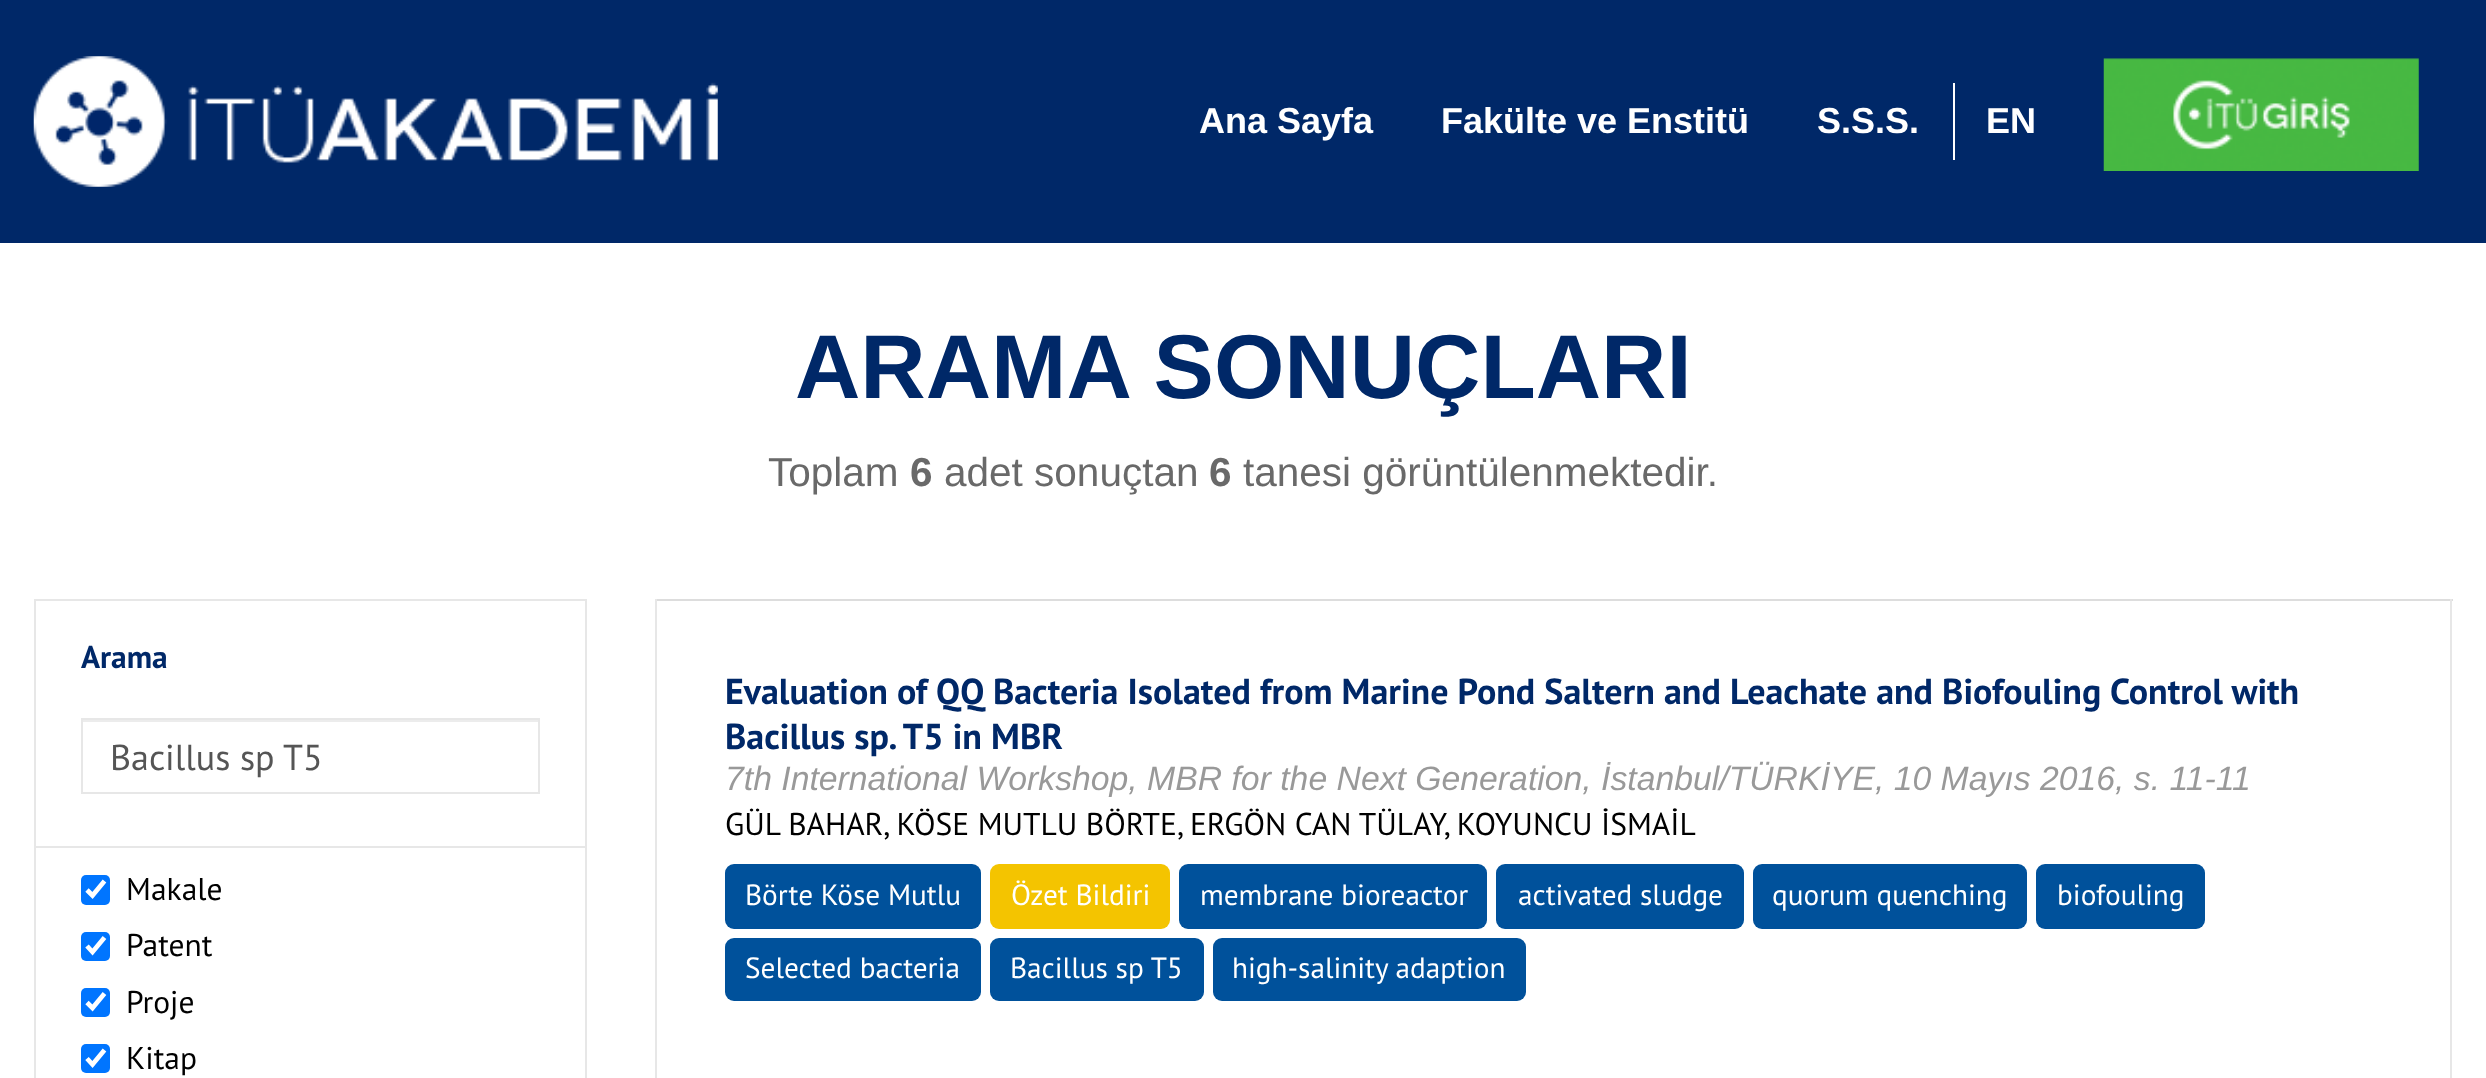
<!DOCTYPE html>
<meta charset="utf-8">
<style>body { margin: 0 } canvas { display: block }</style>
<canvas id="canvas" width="2486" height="1078"></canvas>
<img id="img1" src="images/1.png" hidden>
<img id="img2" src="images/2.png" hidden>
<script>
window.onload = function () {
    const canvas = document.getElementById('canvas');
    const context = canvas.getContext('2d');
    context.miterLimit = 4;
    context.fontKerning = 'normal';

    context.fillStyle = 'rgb(255, 255, 255)';
    context.fillRect(0, 0, 2486, 1078);
    context.fillStyle = 'rgb(0, 40, 104)';
    context.fillRect(0, 0, 2486, 243);
    context.drawImage(document.getElementById('img1'), 33, 56, 685, 131);
    context.fillStyle = 'rgb(255, 255, 255)';
    context.fillRect(1953, 83, 2, 77);
    context.drawImage(document.getElementById('img2'), 2103, 58, 316, 113);
    context.fillStyle = 'rgb(231, 231, 231)';
    context.fillRect(34, 599, 553, 2);
    context.fillRect(34, 846, 553, 2);
    context.fillRect(585, 846, 2, 232);
    context.fillRect(585, 599, 2, 249);
    context.fillRect(34, 846, 2, 232);
    context.fillRect(34, 599, 2, 249);
    context.fillStyle = 'rgb(236, 236, 236)';
    context.fillRect(83, 720, 455, 2);
    context.strokeStyle = 'rgb(231, 231, 231)';
    context.lineWidth = 2;
    context.strokeRect(82, 719, 457, 74);
    context.fillStyle = 'rgb(0, 117, 255)';
    context.beginPath();
    context.roundRect(81, 875, 29, 30, 5);
    context.fill();
    context.beginPath();
    context.moveTo(87, 890);
    context.lineTo(92.5, 895.5);
    context.lineTo(104.5, 881);
    context.strokeStyle = 'rgb(255, 255, 255)';
    context.lineWidth = 4.7;
    context.stroke();
    context.beginPath();
    context.roundRect(81, 932, 29, 29, 5);
    context.fill();
    context.beginPath();
    context.moveTo(87, 946);
    context.lineTo(92.5, 952);
    context.lineTo(104.5, 937.5);
    context.stroke();
    context.beginPath();
    context.roundRect(81, 988, 29, 29, 5);
    context.fill();
    context.beginPath();
    context.moveTo(87, 1002.5);
    context.lineTo(92.5, 1008);
    context.lineTo(104.5, 993.5);
    context.stroke();
    context.beginPath();
    context.roundRect(81, 1044, 29, 29, 5);
    context.fill();
    context.beginPath();
    context.moveTo(87, 1058.5);
    context.lineTo(92.5, 1064.5);
    context.lineTo(104.5, 1050);
    context.stroke();
    context.fillStyle = 'rgb(221, 221, 221)';
    context.fillRect(655, 599, 1798, 2);
    context.fillStyle = 'rgb(231, 231, 231)';
    context.fillRect(2450, 599, 2, 479);
    context.fillRect(655, 599, 2, 479);
    context.fillStyle = 'rgb(0, 81, 155)';
    context.beginPath();
    context.roundRect(725, 864, 256, 65, 9);
    context.fill();
    context.fillStyle = 'rgb(244, 196, 0)';
    context.beginPath();
    context.roundRect(990, 864, 180, 65, 9);
    context.fill();
    context.fillStyle = 'rgb(0, 81, 155)';
    context.beginPath();
    context.roundRect(1179, 864, 308, 65, 9);
    context.fill();
    context.beginPath();
    context.roundRect(1496, 864, 248, 65, 9);
    context.fill();
    context.beginPath();
    context.roundRect(1753, 864, 274, 65, 9);
    context.fill();
    context.beginPath();
    context.roundRect(2036, 864, 169, 65, 9);
    context.fill();
    context.beginPath();
    context.roundRect(725, 938, 256, 63, 9);
    context.fill();
    context.beginPath();
    context.roundRect(990, 938, 214, 63, 9);
    context.fill();
    context.beginPath();
    context.roundRect(1213, 938, 313, 63, 9);
    context.fill();
    context.font = 'bold 36px Liberation Sans';
    context.fillStyle = 'rgb(255, 255, 255)';
    context.fillText('Ana Sayfa', 1199, 133);
    context.fillText('Fakülte ve Enstitü', 1441, 133);
    context.fillText('S.S.S.', 1817, 133);
    context.fillText('EN', 1986, 133);
    context.font = 'bold 90.5px Liberation Sans';
    context.fillStyle = 'rgb(0, 40, 104)';
    context.fillText('ARAMA SONUÇLARI', 795, 398);
    context.font = '40.5px Liberation Sans';
    context.fillStyle = 'rgb(105, 105, 105)';
    context.fillText('Toplam', 768, 486);
    context.font = 'bold 40.5px Liberation Sans';
    context.fillText('6', 910, 486);
    context.font = '40.5px Liberation Sans';
    context.fillText('adet sonuçtan', 944, 486);
    context.font = 'bold 40.5px Liberation Sans';
    context.fillText('6', 1209, 486);
    context.font = '40.5px Liberation Sans';
    context.fillText('tanesi görüntülenmektedir.', 1243, 486);
    context.font = 'bold 31.5px PT Sans';
    context.fillStyle = 'rgb(0, 40, 104)';
    context.fillText('Arama', 81, 668);
    context.font = '36px PT Sans';
    context.fillStyle = 'rgb(85, 85, 85)';
    context.fillText('Bacillus sp T5', 110, 770);
    context.font = '31.5px PT Sans';
    context.fillStyle = 'rgb(0, 0, 0)';
    context.fillText('Makale', 126, 900);
    context.fillText('Patent', 126, 956);
    context.fillText('Proje', 126, 1013);
    context.fillText('Kitap', 126, 1069);
    context.font = 'bold 36px PT Sans';
    context.fillStyle = 'rgb(0, 40, 104)';
    context.fillText('Evaluation of QQ Bacteria Isolated from Marine Pond Saltern and Leachate and Biofouling Control with', 725, 704);
    context.fillText('Bacillus sp. T5 in MBR', 725, 749);
    context.font = 'italic 33.75px Liberation Sans';
    context.fillStyle = 'rgb(153, 153, 153)';
    context.fillText('7th International Workshop, MBR for the Next Generation, İstanbul/TÜRKİYE, 10 Mayıs 2016, s. 11-11', 725, 790);
    context.font = '31.5px PT Sans';
    context.fillStyle = 'rgb(0, 0, 0)';
    context.fillText('GÜL BAHAR, KÖSE MUTLU BÖRTE, ERGÖN CAN TÜLAY, KOYUNCU İSMAİL', 725, 835);
    context.font = '29.25px PT Sans';
    context.fillStyle = 'rgb(255, 255, 255)';
    context.fillText('Börte Köse Mutlu', 745, 905);
    context.fillText('Özet Bildiri', 1011, 905);
    context.fillText('membrane bioreactor', 1200, 905);
    context.fillText('activated sludge', 1518, 905);
    context.fillText('quorum quenching', 1772, 905);
    context.fillText('biofouling', 2057, 905);
    context.fillText('Selected bacteria', 745, 978);
    context.fillText('Bacillus sp T5', 1010, 978);
    context.fillText('high-salinity adaption', 1232, 978);
};
</script>
